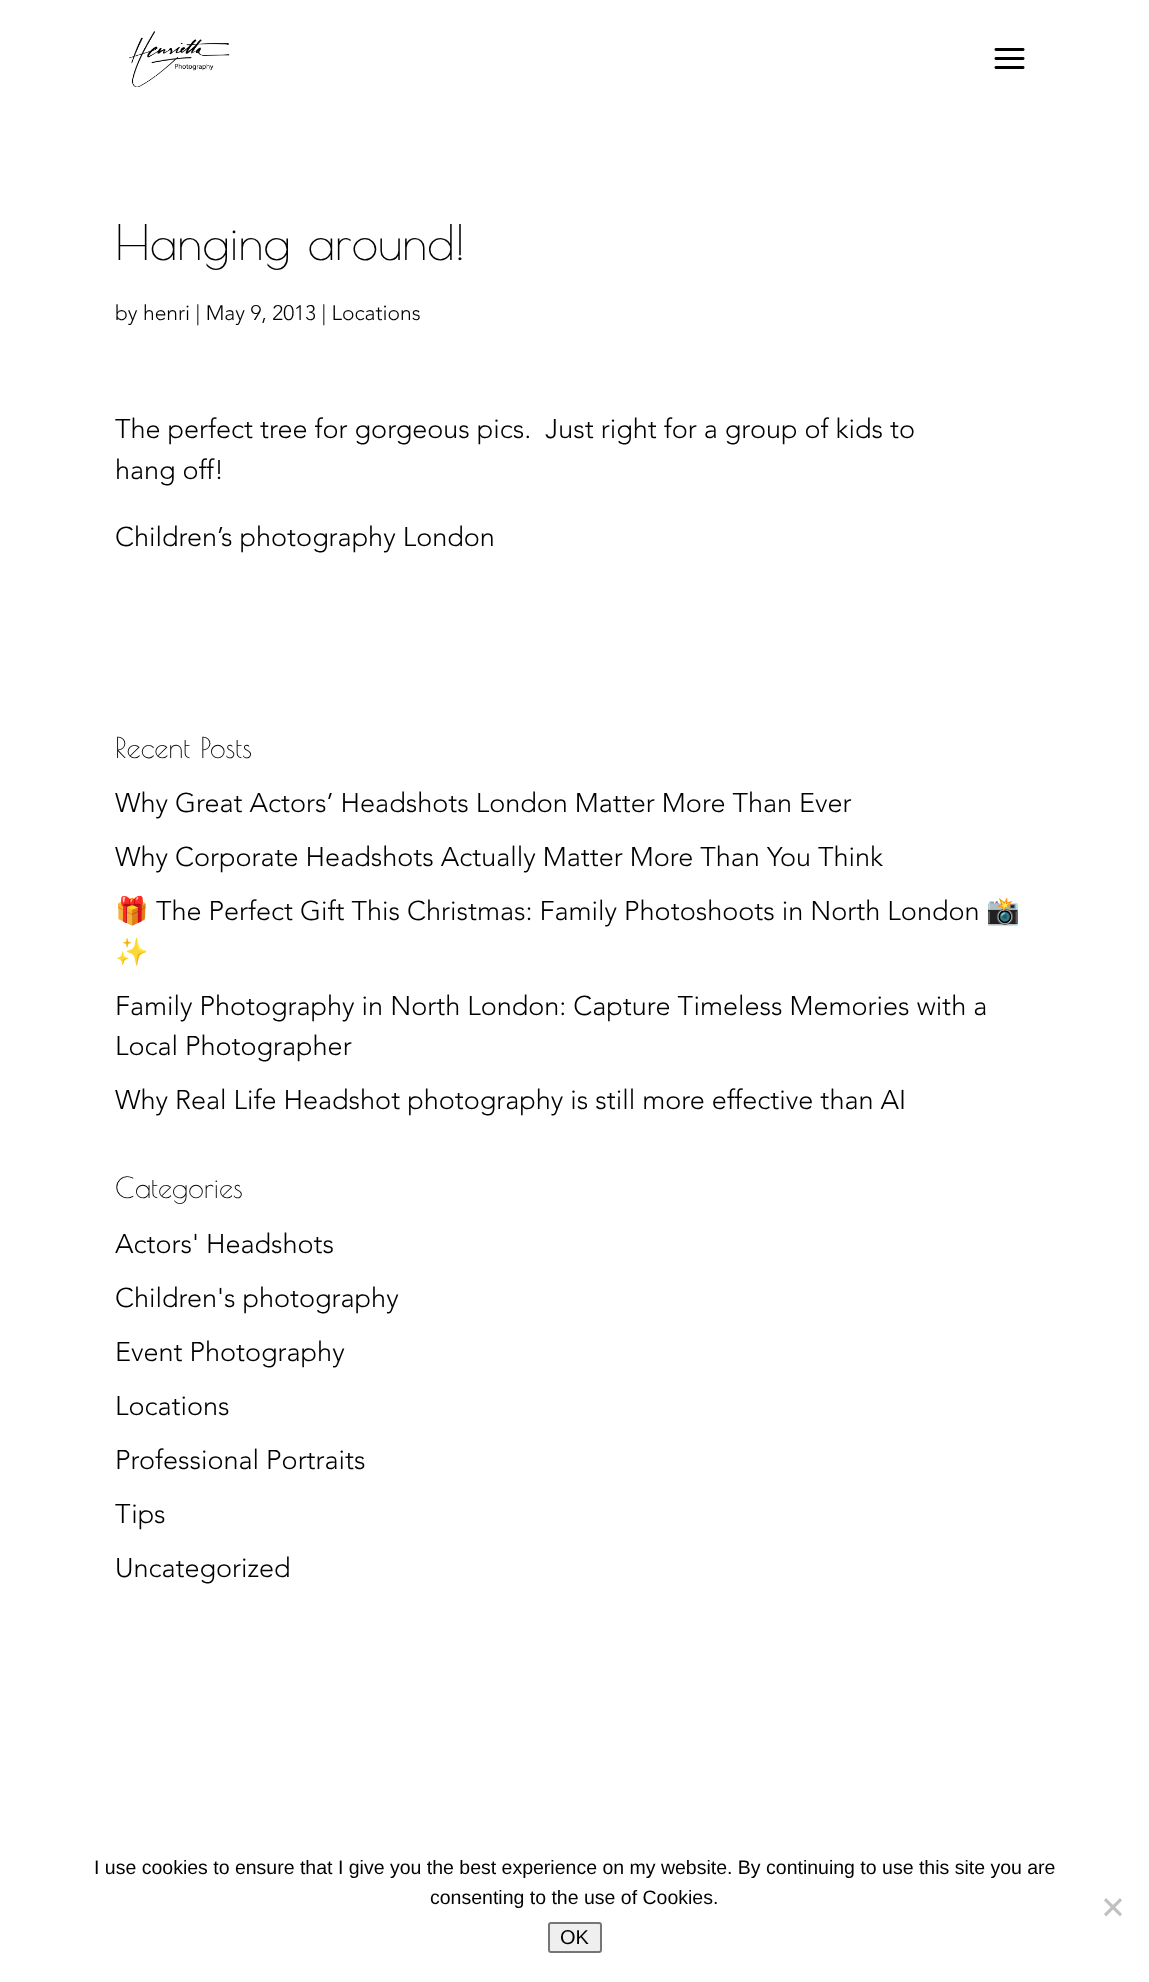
<!DOCTYPE html>
<meta charset="utf-8">
<style>body { margin: 0 } canvas { display: block }</style>
<canvas id="canvas" width="1149" height="1982"></canvas>
<img id="img1" src="images/1.png" hidden>
<img id="img2" src="images/2.png" hidden>
<script>
window.onload = function () {
    const canvas = document.getElementById('canvas');
    const context = canvas.getContext('2d');
    context.miterLimit = 4;
    context.fontKerning = 'normal';

    context.fillStyle = 'rgb(255, 255, 255)';
    context.fillRect(0, 0, 1149, 1982);
    context.drawImage(document.getElementById('img1'), 129, 31, 101, 56);
    context.drawImage(document.getElementById('img2'), 994, 48, 31, 21);
    context.fillStyle = 'rgb(192, 192, 192)';
    context.beginPath();
    context.moveTo(1120, 1898);
    context.lineTo(1122, 1900.5);
    context.lineTo(1106, 1916.5);
    context.lineTo(1104, 1914);
    context.closePath();
    context.fill();
    context.beginPath();
    context.moveTo(1104, 1900.5);
    context.lineTo(1106, 1898);
    context.lineTo(1122, 1914);
    context.lineTo(1120, 1916.5);
    context.closePath();
    context.fill();
    context.fillStyle = 'rgb(239, 239, 239)';
    context.beginPath();
    context.roundRect(549, 1923, 52, 29, 2);
    context.fill();
    context.strokeStyle = 'rgb(118, 118, 118)';
    context.lineWidth = 2;
    context.stroke();
    context.font = '48px Poiret One';
    context.fillStyle = 'rgb(0, 0, 0)';
    context.fillText('Hanging around!', 115, 260);
    context.font = '300 21px Avenir';
    context.fillText('by henri | May 9, 2013 | Locations', 115, 320);
    context.font = '300 27px Avenir';
    context.fillText('The perfect tree for gorgeous pics.  Just right for a group of kids to', 115, 438);
    context.fillText('hang off!', 115, 479);
    context.fillText('Children’s photography London', 115, 546);
    context.font = '28.5px Poiret One';
    context.fillText('Recent Posts', 115, 758);
    context.font = '300 27px Avenir';
    context.fillText('Why Great Actors’ Headshots London Matter More Than Ever', 115, 812);
    context.fillText('Why Corporate Headshots Actually Matter More Than You Think', 115, 866);
    context.font = '27px Noto Color Emoji';
    context.fillText('🎁', 115, 920);
    context.font = '300 27px Avenir';
    context.fillText('The Perfect Gift This Christmas: Family Photoshoots in North London', 156, 920);
    context.font = '27px Noto Color Emoji';
    context.fillText('📸', 986, 920);
    context.fillText('✨', 115, 961);
    context.font = '300 27px Avenir';
    context.fillText('Family Photography in North London: Capture Timeless Memories with a', 115, 1015);
    context.fillText('Local Photographer', 115, 1055);
    context.fillText('Why Real Life Headshot photography is still more effective than AI', 115, 1109);
    context.font = '28.5px Poiret One';
    context.fillText('Categories', 115, 1198);
    context.font = '300 27px Avenir';
    context.fillText('Actors\' Headshots', 115, 1253);
    context.fillText('Children\'s photography', 115, 1307);
    context.fillText('Event Photography', 115, 1361);
    context.fillText('Locations', 115, 1415);
    context.fillText('Professional Portraits', 115, 1469);
    context.fillText('Tips', 115, 1523);
    context.fillText('Uncategorized', 115, 1577);
    context.font = '19.5px Liberation Sans';
    context.fillText('I use cookies to ensure that I give you the best experience on my website. By continuing to use this site you are', 94, 1874);
    context.fillText('consenting to the use of Cookies.', 430, 1904);
    context.font = '20px Liberation Sans';
    context.fillText('OK', 560, 1944);
};
</script>
